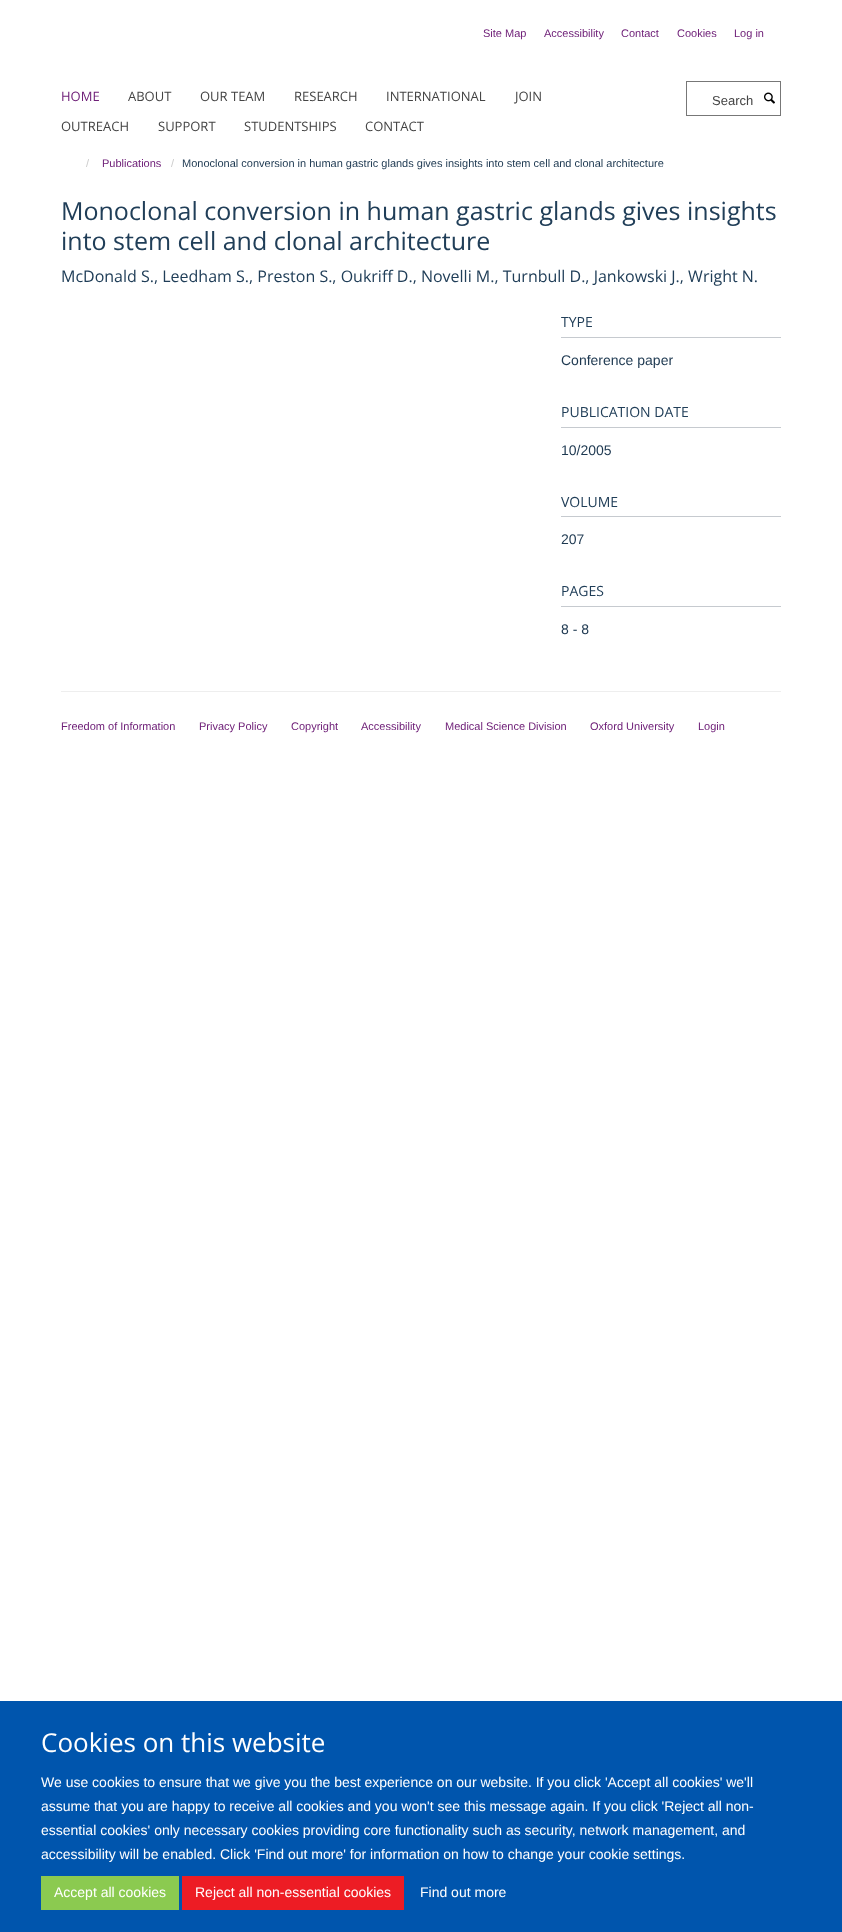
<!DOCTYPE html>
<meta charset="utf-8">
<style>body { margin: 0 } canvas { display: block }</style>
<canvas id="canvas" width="842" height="1932"></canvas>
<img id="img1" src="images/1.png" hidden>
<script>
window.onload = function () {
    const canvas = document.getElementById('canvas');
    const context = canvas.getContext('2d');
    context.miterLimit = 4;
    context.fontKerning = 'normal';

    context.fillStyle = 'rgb(255, 255, 255)';
    context.fillRect(0, 0, 842, 1932);
    context.strokeStyle = 'rgb(119, 119, 119)';
    context.strokeRect(686.5, 81.5, 94, 34);
    context.drawImage(document.getElementById('img1'), 764, 92, 11, 12);
    context.fillStyle = 'rgb(198, 202, 207)';
    context.fillRect(561, 337, 220, 1);
    context.fillRect(561, 427, 220, 1);
    context.fillRect(561, 516, 220, 1);
    context.fillRect(561, 606, 220, 1);
    context.fillStyle = 'rgb(238, 238, 238)';
    context.fillRect(61, 691, 720, 1);
    context.fillStyle = 'rgb(0, 85, 173)';
    context.fillRect(0, 1701, 842, 231);
    context.fillStyle = 'rgb(139, 202, 80)';
    context.fillRect(41, 1876, 138, 34);
    context.fillStyle = 'rgb(237, 28, 36)';
    context.fillRect(182, 1876, 222, 34);
    context.font = '11px Liberation Sans';
    context.fillStyle = 'rgb(111, 32, 120)';
    context.fillText('Site Map', 483, 37);
    context.fillText('Accessibility', 544, 37);
    context.fillText('Contact', 621, 37);
    context.fillText('Cookies', 677, 37);
    context.fillText('Log in', 734, 37);
    context.font = '13px Open Sans';
    context.fillText('HOME', 61, 101);
    context.fillStyle = 'rgb(68, 68, 68)';
    context.fillText('ABOUT', 128, 101);
    context.fillText('OUR TEAM', 200, 101);
    context.fillText('RESEARCH', 294, 101);
    context.fillText('INTERNATIONAL', 386, 101);
    context.fillText('JOIN', 515, 101);
    context.fillText('OUTREACH', 61, 131);
    context.fillText('SUPPORT', 158, 131);
    context.fillText('STUDENTSHIPS', 244, 131);
    context.fillText('CONTACT', 365, 131);
    context.font = '13px Liberation Sans';
    context.fillText('Search', 712, 105);
    context.font = '11px Liberation Sans';
    context.fillStyle = 'rgb(204, 204, 204)';
    context.fillText('/', 86, 167);
    context.fillStyle = 'rgb(111, 32, 120)';
    context.fillText('Publications', 102, 167);
    context.fillStyle = 'rgb(204, 204, 204)';
    context.fillText('/', 171, 167);
    context.fillStyle = 'rgb(29, 56, 80)';
    context.fillText('Monoclonal conversion in human gastric glands gives insights into stem cell and clonal architecture', 182, 167);
    context.font = '25px Open Sans';
    context.fillStyle = 'rgb(32, 62, 88)';
    context.fillText('Monoclonal conversion in human gastric glands gives insights', 61, 220);
    context.fillText('into stem cell and clonal architecture', 61, 250);
    context.font = '16px Open Sans';
    context.fillText('McDonald S., Leedham S., Preston S., Oukriff D., Novelli M., Turnbull D., Jankowski J., Wright N.', 61, 282);
    context.font = '14px Open Sans';
    context.fillText('TYPE', 561, 327);
    context.font = '14px Liberation Sans';
    context.fillStyle = 'rgb(29, 56, 80)';
    context.fillText('Conference paper', 561, 365);
    context.font = '14px Open Sans';
    context.fillStyle = 'rgb(32, 62, 88)';
    context.fillText('PUBLICATION DATE', 561, 417);
    context.font = '14px Liberation Sans';
    context.fillStyle = 'rgb(29, 56, 80)';
    context.fillText('10/2005', 561, 455);
    context.font = '14px Open Sans';
    context.fillStyle = 'rgb(32, 62, 88)';
    context.fillText('VOLUME', 561, 507);
    context.font = '14px Liberation Sans';
    context.fillStyle = 'rgb(29, 56, 80)';
    context.fillText('207', 561, 544);
    context.font = '14px Open Sans';
    context.fillStyle = 'rgb(32, 62, 88)';
    context.fillText('PAGES', 561, 596);
    context.font = '14px Liberation Sans';
    context.fillStyle = 'rgb(29, 56, 80)';
    context.fillText('8 - 8', 561, 634);
    context.font = '11px Liberation Sans';
    context.fillStyle = 'rgb(111, 32, 120)';
    context.fillText('Freedom of Information', 61, 730);
    context.fillText('Privacy Policy', 199, 730);
    context.fillText('Copyright', 291, 730);
    context.fillText('Accessibility', 361, 730);
    context.fillText('Medical Science Division', 445, 730);
    context.fillText('Oxford University', 590, 730);
    context.fillText('Login', 698, 730);
    context.font = '26px Open Sans';
    context.fillStyle = 'rgb(255, 255, 255)';
    context.fillText('Cookies on this website', 41, 1752);
    context.font = '14px Liberation Sans';
    context.fillText('We use cookies to ensure that we give you the best experience on our website. If you click \'Accept all cookies\' we\'ll', 41, 1787);
    context.fillText('assume that you are happy to receive all cookies and you won\'t see this message again. If you click \'Reject all non-', 41, 1811);
    context.fillText('essential cookies\' only necessary cookies providing core functionality such as security, network management, and', 41, 1835);
    context.fillText('accessibility will be enabled. Click \'Find out more\' for information on how to change your cookie settings.', 41, 1859);
    context.fillText('Accept all cookies', 54, 1897);
    context.fillText('Reject all non-essential cookies', 195, 1897);
    context.fillText('Find out more', 420, 1897);
};
</script>
